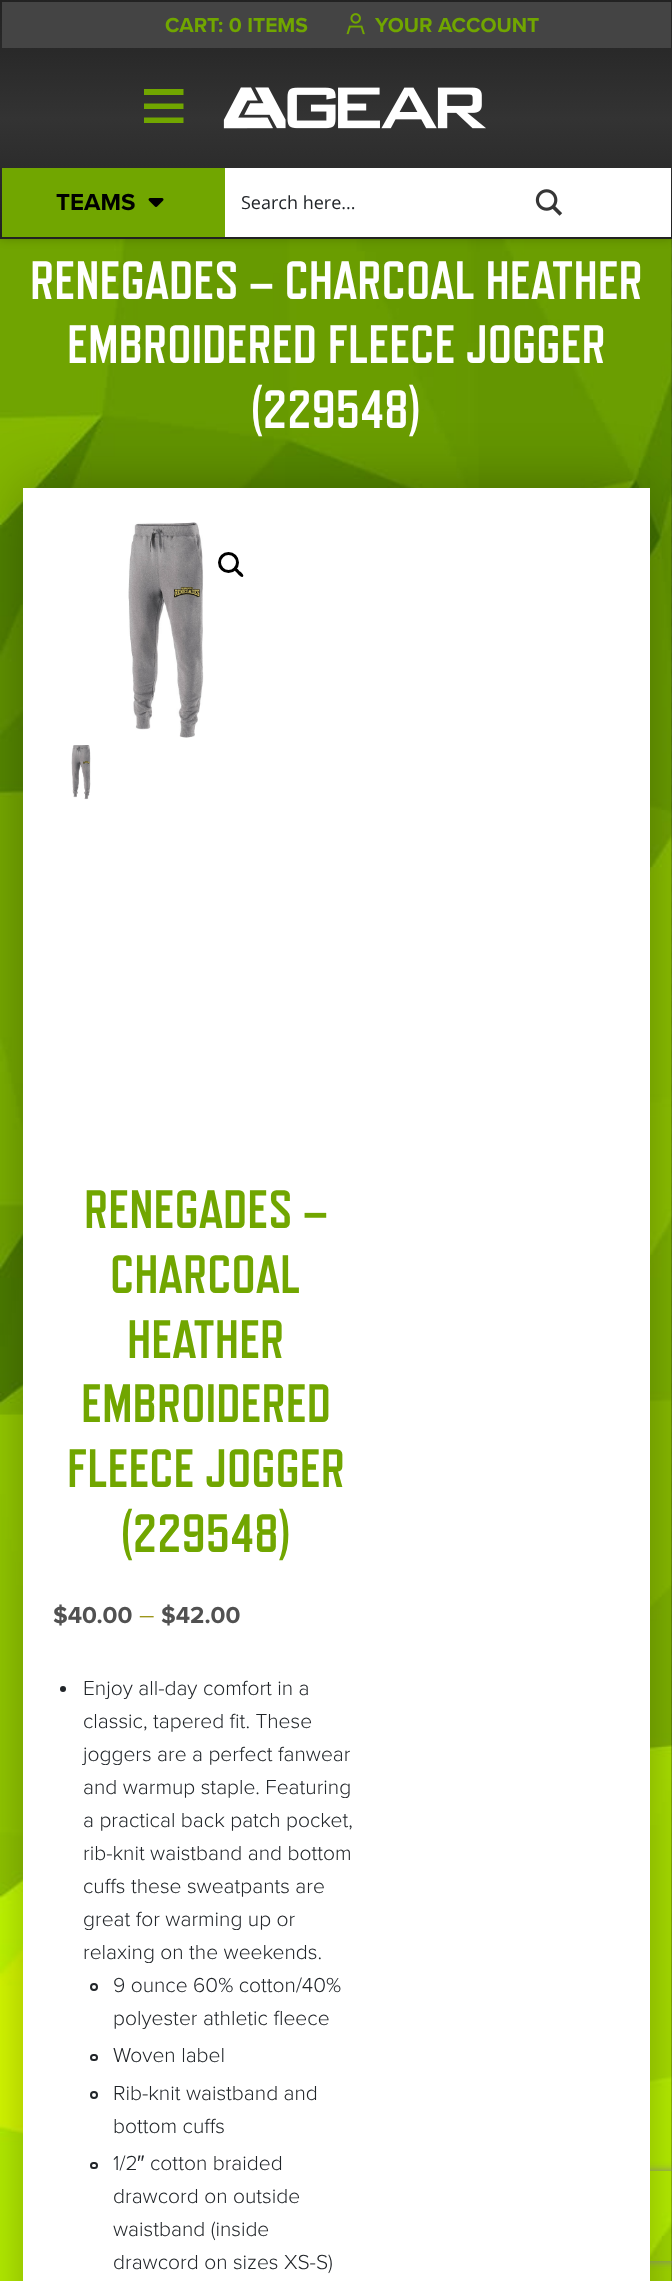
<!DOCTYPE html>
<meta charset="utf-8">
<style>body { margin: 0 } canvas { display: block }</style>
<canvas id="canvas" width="672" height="2281"></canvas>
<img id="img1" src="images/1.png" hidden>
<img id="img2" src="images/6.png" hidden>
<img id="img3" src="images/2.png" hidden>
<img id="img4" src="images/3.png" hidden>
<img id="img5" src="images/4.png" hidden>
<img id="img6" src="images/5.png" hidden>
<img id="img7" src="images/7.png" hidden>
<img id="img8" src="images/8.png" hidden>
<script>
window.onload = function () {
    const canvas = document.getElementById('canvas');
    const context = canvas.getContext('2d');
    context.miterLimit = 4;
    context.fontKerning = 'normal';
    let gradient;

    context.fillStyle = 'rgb(255, 255, 255)';
    context.fillRect(0, 0, 672, 2281);
    context.drawImage(document.getElementById('img1'), 671, 239, 1, 2042);
    context.drawImage(document.getElementById('img2'), 0, 239, 672, 2042);
    context.fillStyle = 'rgba(0, 0, 0, 0.2)';
    context.filter = 'blur(5px)';
    context.beginPath();
    context.rect(0, 0, 672, 239);
    context.fill();
    context.filter = 'none';
    gradient = context.createLinearGradient(336, -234, 336, 1.5);
    gradient.addColorStop(0, 'rgb(34, 34, 34)');
    gradient.addColorStop(0.5, 'rgb(51, 51, 51)');
    gradient.addColorStop(1, 'rgb(34, 34, 34)');
    context.fillStyle = gradient;
    context.fillRect(0, 0, 672, 2);
    gradient = context.createLinearGradient(336, 1.5, 336, 237);
    gradient.addColorStop(0, 'rgb(34, 34, 34)');
    gradient.addColorStop(0.5, 'rgb(51, 51, 51)');
    gradient.addColorStop(1, 'rgb(34, 34, 34)');
    context.fillStyle = gradient;
    context.fillRect(0, 2, 672, 235);
    gradient = context.createLinearGradient(336, 237, 336, 473);
    gradient.addColorStop(0, 'rgb(34, 34, 34)');
    gradient.addColorStop(0.5, 'rgb(51, 51, 51)');
    gradient.addColorStop(1, 'rgb(34, 34, 34)');
    context.fillStyle = gradient;
    context.fillRect(0, 237, 672, 2);
    context.fillStyle = 'rgb(68, 68, 68)';
    context.fillRect(2, 2, 669, 46);
    context.drawImage(document.getElementById('img3'), 346, 13, 19, 22);
    context.fillStyle = 'rgb(113, 166, 0)';
    context.beginPath();
    context.moveTo(144, 89);
    context.lineTo(183.5, 89);
    context.lineTo(183.5, 95);
    context.lineTo(144, 95);
    context.closePath();
    context.moveTo(144, 103.5);
    context.lineTo(183.5, 103.5);
    context.lineTo(183.5, 109);
    context.lineTo(144, 109);
    context.closePath();
    context.moveTo(183.5, 117.5);
    context.lineTo(183.5, 123);
    context.lineTo(144, 123);
    context.lineTo(144, 117.5);
    context.closePath();
    context.fill();
    context.drawImage(document.getElementById('img4'), 223, 87, 263, 42);
    context.fillStyle = 'rgb(255, 255, 255)';
    context.fillRect(225, 168, 446, 69);
    context.fillStyle = 'rgb(113, 166, 0)';
    context.fillRect(2, 168, 223, 69);
    context.drawImage(document.getElementById('img5'), 148, 198, 16, 9);
    context.drawImage(document.getElementById('img6'), 535, 189, 28, 27);
    context.fillStyle = 'rgba(0, 0, 0, 0.3)';
    context.filter = 'blur(30px)';
    context.beginPath();
    context.rect(23, 488, 627, 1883);
    context.fill();
    context.filter = 'none';
    context.save();
    context.beginPath();
    context.moveTo(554, 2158);
    context.lineTo(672, 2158);
    context.lineTo(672, 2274);
    context.lineTo(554, 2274);
    context.closePath();
    context.moveTo(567, 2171);
    context.lineTo(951, 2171);
    context.lineTo(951, 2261);
    context.lineTo(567, 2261);
    context.closePath();
    context.clip('evenodd');
    context.fillStyle = 'rgb(128, 128, 128)';
    context.filter = 'blur(4px)';
    context.beginPath();
    context.rect(567, 2171, 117, 90);
    context.fill();
    context.filter = 'none';
    context.restore();
    context.fillStyle = 'rgb(255, 255, 255)';
    context.fillRect(23, 488, 627, 1793);
    context.drawImage(document.getElementById('img7'), 128, 522, 76, 216);
    context.beginPath();
    context.arc(228.5, 562.5, 9, 0, 2 * Math.PI);
    context.strokeStyle = 'rgb(0, 0, 0)';
    context.lineWidth = 3;
    context.stroke();
    context.fillStyle = 'rgb(0, 0, 0)';
    context.beginPath();
    context.moveTo(234.5, 568);
    context.bezierCurveTo(236, 566.5, 239, 570.5, 240, 571.5);
    context.bezierCurveTo(241, 572, 244.5, 575, 243, 576.5);
    context.bezierCurveTo(241.5, 578.5, 238.5, 574.5, 237.5, 573.5);
    context.bezierCurveTo(237, 572.5, 233, 570, 234.5, 568);
    context.closePath();
    context.fill();
    context.drawImage(document.getElementById('img8'), 71, 745, 20, 55);
    context.fillStyle = 'rgb(33, 37, 41)';
    context.beginPath();
    context.arc(63, 1689, 3, 0, 2 * Math.PI);
    context.fill();
    context.beginPath();
    context.arc(94, 1987, 3, 0, 2 * Math.PI);
    context.strokeStyle = 'rgb(33, 37, 41)';
    context.lineWidth = 2;
    context.stroke();
    context.beginPath();
    context.roundRect(91, 2055, 6, 5, 2.5);
    context.stroke();
    context.beginPath();
    context.arc(94, 2095, 3, 0, 2 * Math.PI);
    context.stroke();
    context.beginPath();
    context.roundRect(91, 2163, 6, 5, 2.5);
    context.stroke();
    context.font = 'bold 21px Proxima Nova';
    context.fillStyle = 'rgb(113, 166, 0)';
    context.fillText('CART: 0 ITEMS', 165, 32);
    context.fillText('YOUR ACCOUNT', 375, 32);
    context.font = 'bold 24px Proxima Nova';
    context.fillStyle = 'rgb(0, 0, 0)';
    context.fillText('TEAMS', 56, 210);
    context.font = '18px Open Sans';
    context.fillStyle = 'rgb(33, 37, 41)';
    context.fillText('Search here...', 241, 209);
    context.font = 'bold 54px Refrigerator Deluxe';
    context.fillStyle = 'rgb(255, 255, 255)';
    context.fillText('RENEGADES – CHARCOAL HEATHER', 30, 299);
    context.fillText('EMBROIDERED FLEECE JOGGER', 67, 363);
    context.fillText('(229548)', 251, 428);
    context.fillStyle = 'rgb(113, 166, 0)';
    context.fillText('RENEGADES –', 84, 1228);
    context.fillText('CHARCOAL', 110, 1293);
    context.fillText('HEATHER', 127, 1358);
    context.fillText('EMBROIDERED', 81, 1422);
    context.fillText('FLEECE JOGGER', 67, 1487);
    context.fillText('(229548)', 121, 1552);
    context.font = 'bold 24px Proxima Nova';
    context.fillStyle = 'rgb(81, 81, 81)';
    context.fillText('$40.00', 53, 1623);
    context.font = '300 26px Proxima Nova';
    context.fillStyle = 'rgb(149, 142, 9)';
    context.fillText('–', 139, 1623);
    context.font = 'bold 24px Proxima Nova';
    context.fillStyle = 'rgb(81, 81, 81)';
    context.fillText('$42.00', 161, 1623);
    context.font = '300 21px Proxima Nova';
    context.fillStyle = 'rgb(33, 37, 41)';
    context.fillText('Enjoy all-day comfort in a', 83, 1695);
    context.fillText('classic, tapered fit. These', 83, 1728);
    context.fillText('joggers are a perfect fanwear', 83, 1761);
    context.fillText('and warmup staple. Featuring', 83, 1794);
    context.fillText('a practical back patch pocket,', 83, 1827);
    context.fillText('rib-knit waistband and bottom', 83, 1860);
    context.fillText('cuffs these sweatpants are', 83, 1893);
    context.fillText('great for warming up or', 83, 1926);
    context.fillText('relaxing on the weekends.', 83, 1959);
    context.fillText('9 ounce 60% cotton/40%', 113, 1992);
    context.fillText('polyester athletic fleece', 113, 2025);
    context.fillText('Woven label', 113, 2062);
    context.fillText('Rib-knit waistband and', 113, 2100);
    context.fillText('bottom cuffs', 113, 2133);
    context.fillText('1/2', 113, 2170);
    context.font = '21px Liberation Sans';
    context.fillText('″', 137, 2170);
    context.font = '300 21px Proxima Nova';
    context.fillText('cotton braided', 150, 2170);
    context.fillText('drawcord on outside', 113, 2203);
    context.fillText('waistband (inside', 113, 2236);
    context.fillText('drawcord on sizes XS-S)', 113, 2269);
};
</script>
